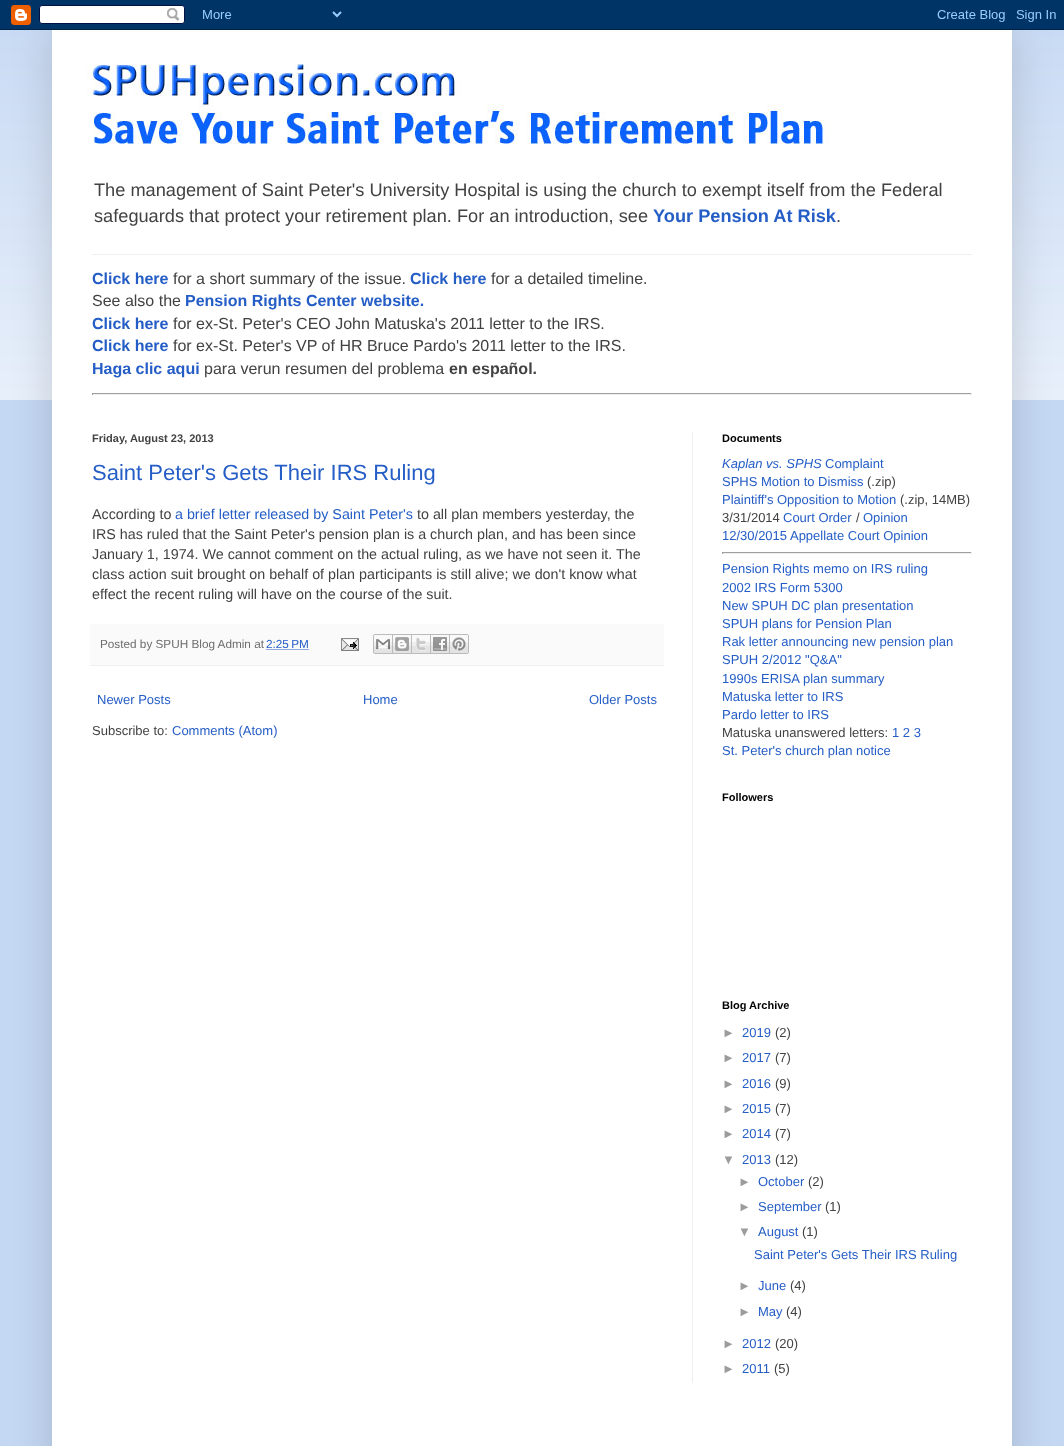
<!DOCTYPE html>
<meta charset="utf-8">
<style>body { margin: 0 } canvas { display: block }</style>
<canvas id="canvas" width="1064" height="1446"></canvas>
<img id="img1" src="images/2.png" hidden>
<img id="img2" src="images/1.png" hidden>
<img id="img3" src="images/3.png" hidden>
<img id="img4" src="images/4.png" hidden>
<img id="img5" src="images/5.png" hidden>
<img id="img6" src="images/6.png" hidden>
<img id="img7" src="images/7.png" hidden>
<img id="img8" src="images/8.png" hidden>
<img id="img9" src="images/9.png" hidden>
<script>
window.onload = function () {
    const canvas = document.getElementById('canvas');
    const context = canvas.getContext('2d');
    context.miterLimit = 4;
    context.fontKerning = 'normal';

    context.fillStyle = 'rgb(196, 215, 243)';
    context.fillRect(0, 0, 1064, 1446);
    context.drawImage(document.getElementById('img1'), 0, 30, 1064, 370);
    context.fillStyle = 'rgba(0, 0, 0, 0.15)';
    context.filter = 'blur(20px)';
    context.beginPath();
    context.rect(52, 30, 960, 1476);
    context.fill();
    context.filter = 'none';
    context.drawImage(document.getElementById('img2'), 0, 0, 1064, 30);
    context.fillStyle = 'rgb(255, 255, 255)';
    context.fillRect(52, 30, 960, 1416);
    context.drawImage(document.getElementById('img3'), 86, 64, 744, 80);
    context.fillStyle = 'rgb(239, 239, 239)';
    context.fillRect(92, 254, 880, 1);
    context.fillStyle = 'rgb(159, 159, 159)';
    context.fillRect(92, 393, 880, 1);
    context.fillStyle = 'rgb(238, 238, 238)';
    context.fillRect(971, 393, 1, 2);
    context.fillRect(92, 394, 880, 1);
    context.fillStyle = 'rgb(159, 159, 159)';
    context.fillRect(92, 393, 1, 2);
    context.fillStyle = 'rgb(239, 239, 239)';
    context.fillRect(692, 432, 1, 951);
    context.fillStyle = 'rgb(250, 250, 250)';
    context.fillRect(90, 624, 574, 41);
    context.fillStyle = 'rgb(239, 239, 239)';
    context.fillRect(90, 665, 574, 1);
    context.beginPath();
    context.moveTo(266.5, 649.5);
    context.lineTo(309, 649.5);
    context.strokeStyle = 'rgb(36, 93, 198)';
    context.setLineDash([1, 1]);
    context.stroke();
    context.drawImage(document.getElementById('img4'), 341, 638, 18, 13);
    context.drawImage(document.getElementById('img5'), 373, 634, 20, 20);
    context.drawImage(document.getElementById('img6'), 393, 634, 19, 20);
    context.drawImage(document.getElementById('img7'), 412, 634, 19, 20);
    context.drawImage(document.getElementById('img8'), 431, 634, 19, 20);
    context.drawImage(document.getElementById('img9'), 450, 634, 19, 20);
    context.fillStyle = 'rgb(159, 159, 159)';
    context.fillRect(722, 552, 250, 1);
    context.fillStyle = 'rgb(238, 238, 238)';
    context.fillRect(971, 552, 1, 2);
    context.fillRect(722, 553, 250, 1);
    context.fillStyle = 'rgb(159, 159, 159)';
    context.fillRect(722, 552, 1, 2);
    context.font = '18.2px Liberation Sans';
    context.fillStyle = 'rgb(66, 66, 66)';
    context.fillText('The management of Saint Peter\'s University Hospital is using the church to exempt itself from the Federal', 94, 196);
    context.fillText('safeguards that protect your retirement plan. For an introduction, see', 94, 222);
    context.font = 'bold 18.2px Liberation Sans';
    context.fillStyle = 'rgb(36, 93, 198)';
    context.fillText('Your Pension At Risk', 653, 222);
    context.font = '18.2px Liberation Sans';
    context.fillStyle = 'rgb(66, 66, 66)';
    context.fillText('.', 836, 222);
    context.font = 'bold 16px Liberation Sans';
    context.fillStyle = 'rgb(36, 93, 198)';
    context.fillText('Click here', 92, 284);
    context.font = '16px Liberation Sans';
    context.fillStyle = 'rgb(66, 66, 66)';
    context.fillText('for a short summary of the issue.', 173, 284);
    context.font = 'bold 16px Liberation Sans';
    context.fillStyle = 'rgb(36, 93, 198)';
    context.fillText('Click here', 410, 284);
    context.font = '16px Liberation Sans';
    context.fillStyle = 'rgb(66, 66, 66)';
    context.fillText('for a detailed timeline.', 491, 284);
    context.fillText('See also the', 92, 306);
    context.font = 'bold 16px Liberation Sans';
    context.fillStyle = 'rgb(36, 93, 198)';
    context.fillText('Pension Rights Center website.', 185, 306);
    context.fillText('Click here', 92, 329);
    context.font = '16px Liberation Sans';
    context.fillStyle = 'rgb(66, 66, 66)';
    context.fillText('for ex-St. Peter\'s CEO John Matuska\'s 2011 letter to the IRS.', 173, 329);
    context.font = 'bold 16px Liberation Sans';
    context.fillStyle = 'rgb(36, 93, 198)';
    context.fillText('Click here', 92, 351);
    context.font = '16px Liberation Sans';
    context.fillStyle = 'rgb(66, 66, 66)';
    context.fillText('for ex-St. Peter\'s VP of HR Bruce Pardo\'s 2011 letter to the IRS.', 173, 351);
    context.font = 'bold 16px Liberation Sans';
    context.fillStyle = 'rgb(36, 93, 198)';
    context.fillText('Haga clic aqui', 92, 374);
    context.font = '16px Liberation Sans';
    context.fillStyle = 'rgb(66, 66, 66)';
    context.fillText('para verun resumen del problema', 204, 374);
    context.font = 'bold 16px Liberation Sans';
    context.fillText('en español.', 449, 374);
    context.font = 'bold 11px Liberation Sans';
    context.fillText('Friday, August 23, 2013', 92, 442);
    context.font = '22px Liberation Sans';
    context.fillStyle = 'rgb(36, 93, 198)';
    context.fillText('Saint Peter\'s Gets Their IRS Ruling', 92, 480);
    context.font = '14.3px Liberation Sans';
    context.fillStyle = 'rgb(66, 66, 66)';
    context.fillText('According to', 92, 519);
    context.fillStyle = 'rgb(36, 93, 198)';
    context.fillText('a brief letter released by Saint Peter\'s', 175, 519);
    context.fillStyle = 'rgb(66, 66, 66)';
    context.fillText('to all plan members yesterday, the', 417, 519);
    context.fillText('IRS has ruled that the Saint Peter\'s pension plan is a church plan, and has been since', 92, 539);
    context.fillText('January 1, 1974. We cannot comment on the actual ruling, as we have not seen it. The', 92, 559);
    context.fillText('class action suit brought on behalf of plan participants is still alive; we don\'t know what', 92, 579);
    context.fillText('effect the recent ruling will have on the course of the suit.', 92, 599);
    context.font = '11.75px Liberation Sans';
    context.fillStyle = 'rgb(109, 109, 109)';
    context.fillText('Posted by SPUH Blog Admin at', 100, 648);
    context.fillStyle = 'rgb(36, 93, 198)';
    context.fillText('2:25 PM', 266, 648);
    context.font = '13px Liberation Sans';
    context.fillText('Newer Posts', 97, 704);
    context.fillText('Home', 363, 704);
    context.fillText('Older Posts', 589, 704);
    context.fillStyle = 'rgb(66, 66, 66)';
    context.fillText('Subscribe to:', 92, 735);
    context.fillStyle = 'rgb(36, 93, 198)';
    context.fillText('Comments (Atom)', 172, 735);
    context.font = 'bold 11px Liberation Sans';
    context.fillStyle = 'rgb(0, 0, 0)';
    context.fillText('Documents', 722, 442);
    context.font = 'italic 13px Liberation Sans';
    context.fillStyle = 'rgb(36, 93, 198)';
    context.fillText('Kaplan vs. SPHS', 722, 468);
    context.font = '13px Liberation Sans';
    context.fillText('Complaint', 825, 468);
    context.fillText('SPHS Motion to Dismiss', 722, 486);
    context.fillStyle = 'rgb(66, 66, 66)';
    context.fillText('(.zip)', 867, 486);
    context.fillStyle = 'rgb(36, 93, 198)';
    context.fillText('Plaintiff\'s Opposition to Motion', 722, 504);
    context.fillStyle = 'rgb(66, 66, 66)';
    context.fillText('(.zip, 14MB)', 900, 504);
    context.fillText('3/31/2014', 722, 522);
    context.fillStyle = 'rgb(36, 93, 198)';
    context.fillText('Court Order', 783, 522);
    context.fillStyle = 'rgb(66, 66, 66)';
    context.fillText('/', 856, 522);
    context.fillStyle = 'rgb(36, 93, 198)';
    context.fillText('Opinion', 863, 522);
    context.fillText('12/30/2015 Appellate Court Opinion', 722, 540);
    context.fillText('Pension Rights memo on IRS ruling', 722, 573);
    context.fillText('2002 IRS Form 5300', 722, 592);
    context.fillText('New SPUH DC plan presentation', 722, 610);
    context.fillText('SPUH plans for Pension Plan', 722, 628);
    context.fillText('Rak letter announcing new pension plan', 722, 646);
    context.fillText('SPUH 2/2012 "Q&A"', 722, 664);
    context.fillText('1990s ERISA plan summary', 722, 683);
    context.fillText('Matuska letter to IRS', 722, 701);
    context.fillText('Pardo letter to IRS', 722, 719);
    context.fillStyle = 'rgb(66, 66, 66)';
    context.fillText('Matuska unanswered letters:', 722, 737);
    context.fillStyle = 'rgb(36, 93, 198)';
    context.fillText('1 2 3', 892, 737);
    context.fillText('St. Peter\'s church plan notice', 722, 755);
    context.font = 'bold 11px Liberation Sans';
    context.fillStyle = 'rgb(0, 0, 0)';
    context.fillText('Followers', 722, 801);
    context.fillText('Blog Archive', 722, 1009);
    context.font = '13px Liberation Sans';
    context.fillStyle = 'rgb(156, 156, 156)';
    context.fillText('►', 722, 1037);
    context.fillStyle = 'rgb(36, 93, 198)';
    context.fillText('2019', 742, 1037);
    context.fillStyle = 'rgb(66, 66, 66)';
    context.fillText('(2)', 775, 1037);
    context.fillStyle = 'rgb(156, 156, 156)';
    context.fillText('►', 722, 1062);
    context.fillStyle = 'rgb(36, 93, 198)';
    context.fillText('2017', 742, 1062);
    context.fillStyle = 'rgb(66, 66, 66)';
    context.fillText('(7)', 775, 1062);
    context.fillStyle = 'rgb(156, 156, 156)';
    context.fillText('►', 722, 1088);
    context.fillStyle = 'rgb(36, 93, 198)';
    context.fillText('2016', 742, 1088);
    context.fillStyle = 'rgb(66, 66, 66)';
    context.fillText('(9)', 775, 1088);
    context.fillStyle = 'rgb(156, 156, 156)';
    context.fillText('►', 722, 1113);
    context.fillStyle = 'rgb(36, 93, 198)';
    context.fillText('2015', 742, 1113);
    context.fillStyle = 'rgb(66, 66, 66)';
    context.fillText('(7)', 775, 1113);
    context.fillStyle = 'rgb(156, 156, 156)';
    context.fillText('►', 722, 1138);
    context.fillStyle = 'rgb(36, 93, 198)';
    context.fillText('2014', 742, 1138);
    context.fillStyle = 'rgb(66, 66, 66)';
    context.fillText('(7)', 775, 1138);
    context.fillStyle = 'rgb(156, 156, 156)';
    context.fillText('▼', 722, 1164);
    context.fillStyle = 'rgb(36, 93, 198)';
    context.fillText('2013', 742, 1164);
    context.fillStyle = 'rgb(66, 66, 66)';
    context.fillText('(12)', 775, 1164);
    context.fillStyle = 'rgb(156, 156, 156)';
    context.fillText('►', 738, 1186);
    context.fillStyle = 'rgb(36, 93, 198)';
    context.fillText('October', 758, 1186);
    context.fillStyle = 'rgb(66, 66, 66)';
    context.fillText('(2)', 808, 1186);
    context.fillStyle = 'rgb(156, 156, 156)';
    context.fillText('►', 738, 1211);
    context.fillStyle = 'rgb(36, 93, 198)';
    context.fillText('September', 758, 1211);
    context.fillStyle = 'rgb(66, 66, 66)';
    context.fillText('(1)', 825, 1211);
    context.fillStyle = 'rgb(156, 156, 156)';
    context.fillText('▼', 738, 1236);
    context.fillStyle = 'rgb(36, 93, 198)';
    context.fillText('August', 758, 1236);
    context.fillStyle = 'rgb(66, 66, 66)';
    context.fillText('(1)', 802, 1236);
    context.fillStyle = 'rgb(36, 93, 198)';
    context.fillText('Saint Peter\'s Gets Their IRS Ruling', 754, 1259);
    context.fillStyle = 'rgb(156, 156, 156)';
    context.fillText('►', 738, 1290);
    context.fillStyle = 'rgb(36, 93, 198)';
    context.fillText('June', 758, 1290);
    context.fillStyle = 'rgb(66, 66, 66)';
    context.fillText('(4)', 790, 1290);
    context.fillStyle = 'rgb(156, 156, 156)';
    context.fillText('►', 738, 1316);
    context.fillStyle = 'rgb(36, 93, 198)';
    context.fillText('May', 758, 1316);
    context.fillStyle = 'rgb(66, 66, 66)';
    context.fillText('(4)', 786, 1316);
    context.fillStyle = 'rgb(156, 156, 156)';
    context.fillText('►', 722, 1348);
    context.fillStyle = 'rgb(36, 93, 198)';
    context.fillText('2012', 742, 1348);
    context.fillStyle = 'rgb(66, 66, 66)';
    context.fillText('(20)', 775, 1348);
    context.fillStyle = 'rgb(156, 156, 156)';
    context.fillText('►', 722, 1373);
    context.fillStyle = 'rgb(36, 93, 198)';
    context.fillText('2011', 742, 1373);
    context.fillStyle = 'rgb(66, 66, 66)';
    context.fillText('(5)', 774, 1373);
};
</script>
